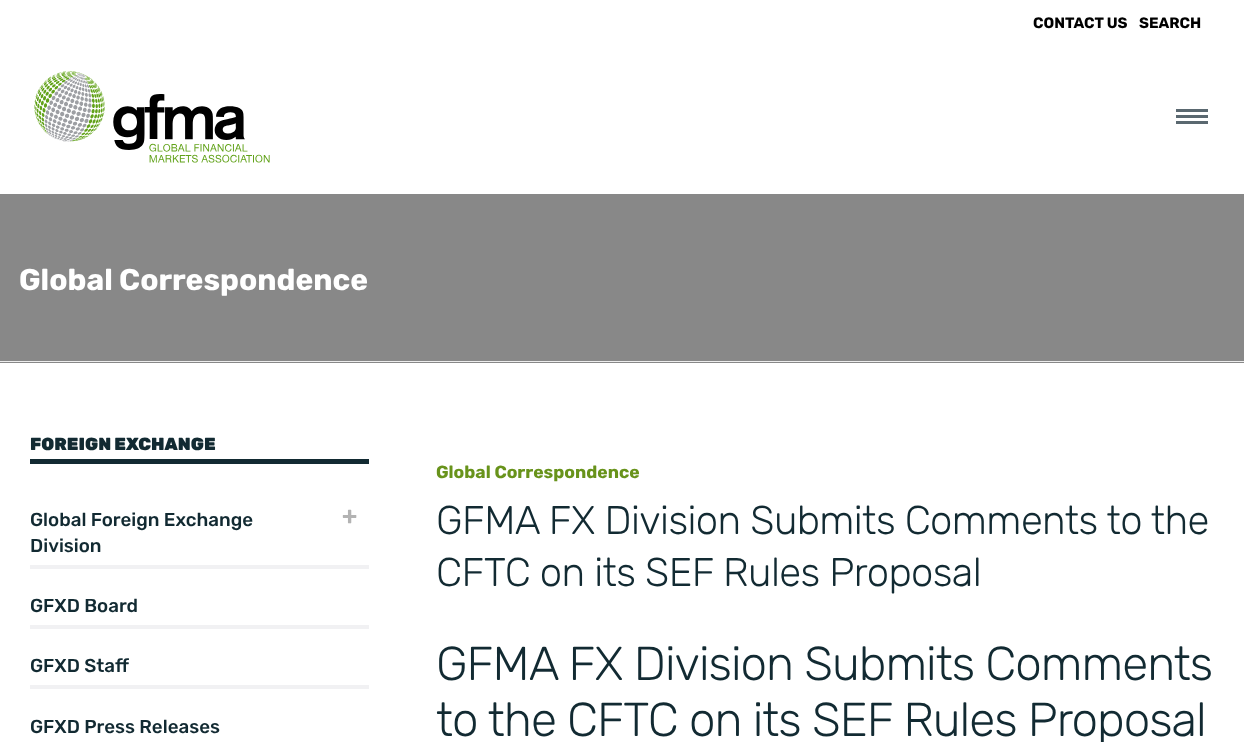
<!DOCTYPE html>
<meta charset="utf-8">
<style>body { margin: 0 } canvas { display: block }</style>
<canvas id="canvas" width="1244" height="742"></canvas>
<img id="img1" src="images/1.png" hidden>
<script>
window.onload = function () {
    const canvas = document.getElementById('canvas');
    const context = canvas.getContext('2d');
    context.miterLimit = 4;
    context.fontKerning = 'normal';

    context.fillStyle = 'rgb(255, 255, 255)';
    context.fillRect(0, 0, 1244, 742);
    context.fillStyle = 'rgb(136, 136, 136)';
    context.fillRect(0, 194, 1244, 169);
    context.fillStyle = 'rgb(237, 237, 237)';
    context.fillRect(0, 361, 1244, 1);
    context.drawImage(document.getElementById('img1'), 34, 71, 236, 92);
    context.fillStyle = 'rgb(90, 104, 112)';
    context.fillRect(1176, 109, 32, 3);
    context.fillRect(1176, 115, 32, 3);
    context.fillRect(1176, 121, 32, 3);
    context.fillStyle = 'rgb(18, 42, 50)';
    context.fillRect(30, 459, 339, 5);
    context.fillStyle = 'rgb(241, 241, 243)';
    context.fillRect(30, 565, 339, 4);
    context.fillRect(30, 625, 339, 4);
    context.fillRect(30, 685, 339, 4);
    context.font = 'bold 15px Rubik';
    context.fillStyle = 'rgb(0, 0, 0)';
    context.fillText('CONTACT US', 1033, 28);
    context.fillText('SEARCH', 1139, 28);
    context.font = 'bold 30px Rubik';
    context.fillStyle = 'rgb(255, 255, 255)';
    context.fillText('Global Correspondence', 19, 290);
    context.font = '900 17.5px Rubik';
    context.fillStyle = 'rgb(18, 42, 50)';
    context.fillText('FOREIGN EXCHANGE', 30, 450);
    context.font = '500 18.75px Rubik';
    context.fillText('Global Foreign Exchange', 30, 526);
    context.fillText('Division', 30, 552);
    context.font = 'bold 25px Rubik';
    context.fillStyle = 'rgb(179, 179, 179)';
    context.fillText('+', 342, 524);
    context.font = '500 18.75px Rubik';
    context.fillStyle = 'rgb(18, 42, 50)';
    context.fillText('GFXD Board', 30, 612);
    context.fillText('GFXD Staff', 30, 672);
    context.fillText('GFXD Press Releases', 30, 733);
    context.font = 'bold 17.5px Rubik';
    context.fillStyle = 'rgb(104, 147, 27)';
    context.fillText('Global Correspondence', 436, 478);
    context.letterSpacing = '-0.6px';
    context.font = '300 40px Rubik';
    context.fillStyle = 'rgb(18, 42, 50)';
    context.fillText('GFMA FX Division Submits Comments to the', 436, 534);
    context.fillText('CFTC on its SEF Rules Proposal', 436, 586);
    context.letterSpacing = '-1px';
    context.font = '300 47.5px Rubik';
    context.fillText('GFMA FX Division Submits Comments', 436, 680);
    context.fillText('to the CFTC on its SEF Rules Proposal', 436, 736);
};
</script>
